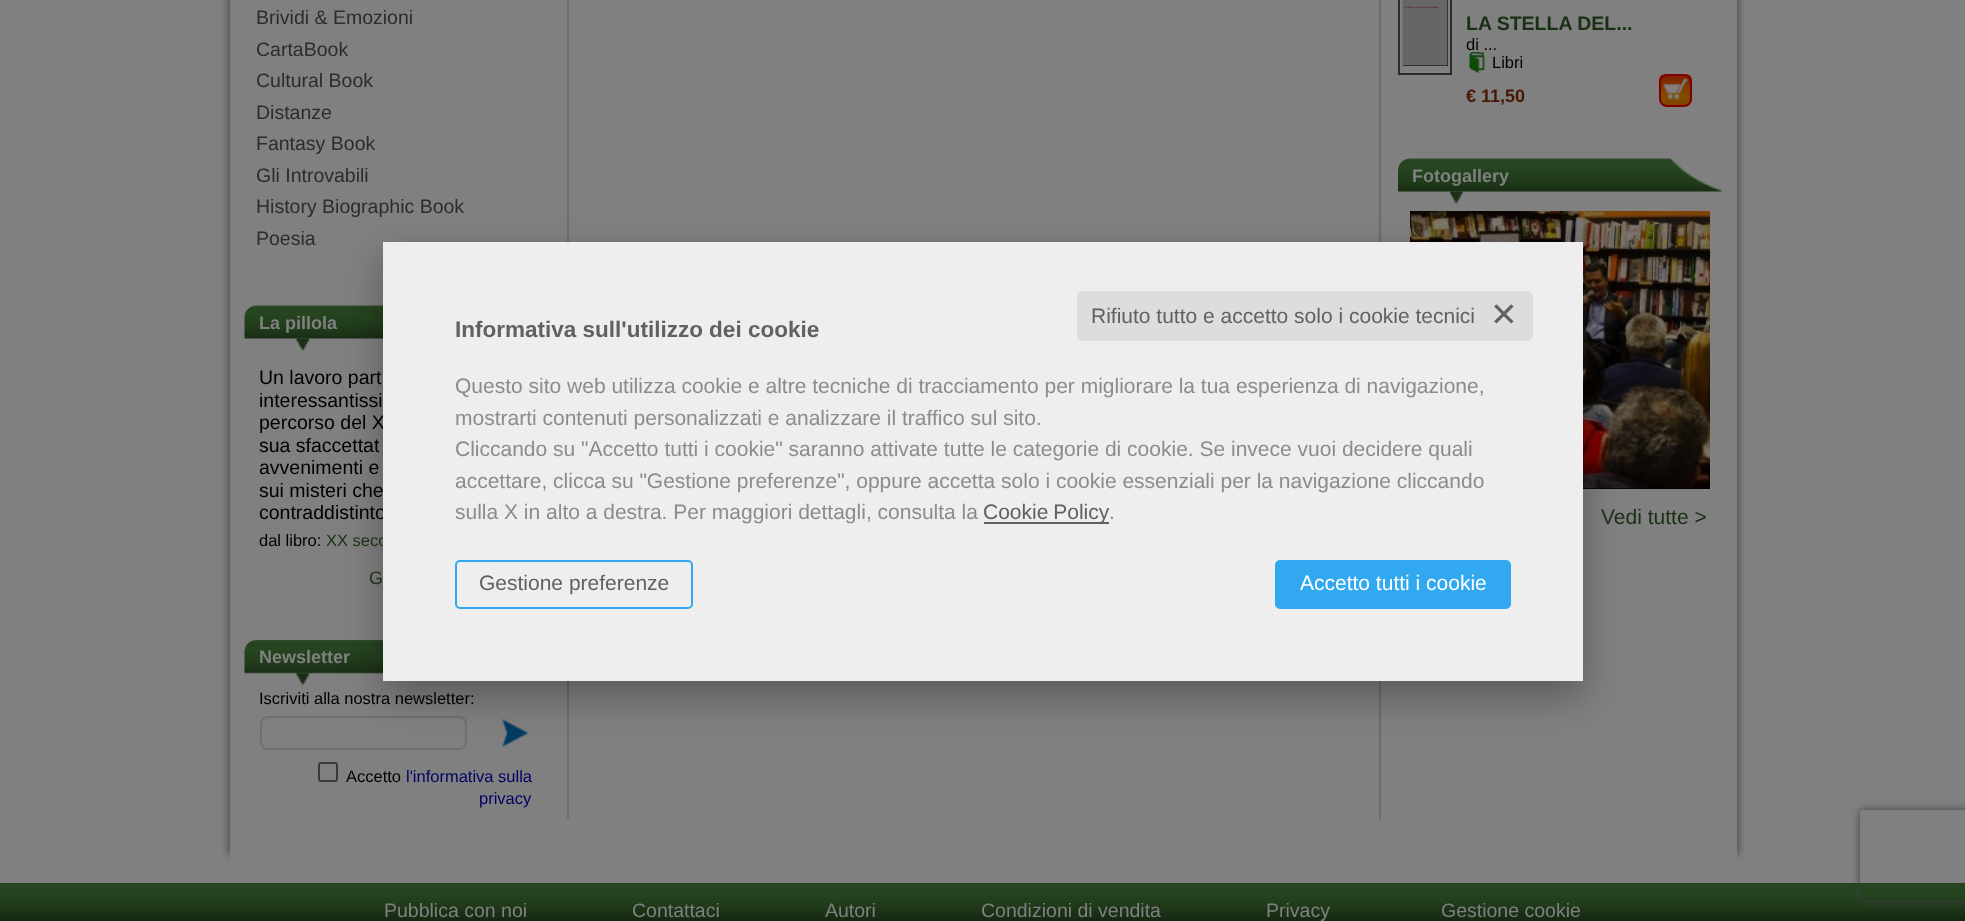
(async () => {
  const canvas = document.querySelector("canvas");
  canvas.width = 1965;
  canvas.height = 921;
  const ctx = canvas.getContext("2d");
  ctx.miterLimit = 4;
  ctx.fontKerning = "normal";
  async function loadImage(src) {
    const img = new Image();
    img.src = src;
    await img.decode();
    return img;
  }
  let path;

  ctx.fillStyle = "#808080";
  ctx.fillRect(0, 0, 1965, 921);
  ctx.save();
  ctx.beginPath();
  ctx.rect(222, 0, 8, 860);
  ctx.clip();
  ctx.fillStyle = "rgba(50, 50, 50, 0.5)";
  ctx.filter = "blur(3px)";
  ctx.beginPath();
  ctx.rect(227, -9, 1495, 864);
  ctx.fill();
  ctx.filter = "none";
  ctx.restore();
  ctx.save();
  ctx.beginPath();
  ctx.rect(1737, 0, 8, 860);
  ctx.clip();
  ctx.fillStyle = "rgba(50, 50, 50, 0.5)";
  ctx.filter = "blur(3px)";
  ctx.beginPath();
  ctx.rect(245, -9, 1495, 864);
  ctx.fill();
  ctx.filter = "none";
  ctx.restore();
  ctx.drawImage(await loadImage("img/1.png"), 296, 338, 14, 13);
  ctx.drawImage(await loadImage("img/2.png"), 244, 305, 139, 34);
  ctx.drawImage(await loadImage("img/3.png"), 296, 672, 14, 13);
  ctx.drawImage(await loadImage("img/4.png"), 244, 640, 139, 34);
  ctx.beginPath();
  ctx.roundRect(261, 717, 205, 32, 7);
  ctx.strokeStyle = "#707070";
  ctx.lineWidth = 2;
  ctx.stroke();
  ctx.drawImage(await loadImage("img/5.png"), 502, 719, 27, 28);
  ctx.beginPath();
  ctx.roundRect(319, 763, 18, 18, 2);
  ctx.strokeStyle = "#3b3b3b";
  ctx.stroke();
  ctx.fillStyle = "#6c6c6c";
  ctx.fillRect(1379, 0, 2, 819);
  ctx.fillRect(567, 0, 2, 819);
  ctx.strokeStyle = "#2b2b2b";
  ctx.strokeRect(1399, -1, 52, 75);
  ctx.fillStyle = "#000000";
  ctx.fillRect(1403, 0, 45, 66);
  ctx.drawImage(await loadImage("img/6.png"), 1402, 0, 46, 66);
  ctx.drawImage(await loadImage("img/7.png"), 1469, 52, 16, 21);
  ctx.drawImage(await loadImage("img/8.png"), 1659, 74, 33, 32);
  ctx.beginPath();
  ctx.roundRect(1660, 75, 31, 31, 7);
  ctx.strokeStyle = "#800000";
  ctx.stroke();
  ctx.drawImage(await loadImage("img/9.png"), 1663, 78, 25, 22);
  ctx.drawImage(await loadImage("img/10.png"), 1449, 191, 14, 13);
  ctx.drawImage(await loadImage("img/11.png"), 1398, 158, 324, 34);
  ctx.fillRect(1583, 488, 127, 1);
  ctx.drawImage(await loadImage("img/12.png"), 1410, 211, 300, 278);
  ctx.drawImage(await loadImage("img/13.png"), 0, 883, 1965, 38);
  ctx.fillStyle = "rgba(0, 0, 0, 0.3)";
  ctx.filter = "blur(19px)";
  ctx.beginPath();
  ctx.rect(383, 257, 1200, 439);
  ctx.fill();
  ctx.filter = "none";
  ctx.save();
  path = new Path2D("M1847 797H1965V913H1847ZM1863 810H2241C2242.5 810 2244 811.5 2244 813V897C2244 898.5 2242.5 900 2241 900H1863C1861.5 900 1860 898.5 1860 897V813C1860 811.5 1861.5 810 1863 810Z");
  ctx.clip(path, "evenodd");
  ctx.fillStyle = "#404040";
  ctx.filter = "blur(4px)";
  ctx.beginPath();
  ctx.roundRect(1860, 810, 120, 90, 3);
  ctx.fill();
  ctx.filter = "none";
  ctx.restore();
  ctx.font = "19.5px Liberation Sans";
  ctx.fillStyle = "#2c2c2c";
  for (const [text, x, y] of [
    ["Brividi & Emozioni", 256, 24],
    ["CartaBook", 256, 56],
    ["Cultural Book", 256, 87],
    ["Distanze", 256, 119],
    ["Fantasy Book", 256, 150],
    ["Gli Introvabili", 256, 182],
    ["History Biographic Book", 256, 213],
    ["Poesia", 256, 245],
  ]) {
    ctx.fillText(text, x, y);
  }
  ctx.font = "bold 18px Liberation Sans";
  ctx.fillStyle = "#808080";
  ctx.fillText("La pillola", 259, 329);
  ctx.font = "19.5px Liberation Sans";
  ctx.fillStyle = "#000000";
  for (const [text, x, y] of [
    ["Un lavoro part", 259, 384],
    ["interessantissi", 259, 407],
    ["percorso del X", 259, 429],
    ["sua sfaccettat", 259, 452],
    ["avvenimenti e", 259, 474],
    ["sui misteri che", 259, 497],
    ["contraddistinto", 259, 519],
  ]) {
    ctx.fillText(text, x, y);
  }
  ctx.font = "16.5px Liberation Sans";
  ctx.fillText("dal libro:", 259, 546);
  ctx.fillStyle = "#1a3015";
  ctx.fillText("XX seco", 326, 546);
  ctx.font = "18px Liberation Sans";
  ctx.fillText("G", 369, 584);
  ctx.font = "bold 18px Liberation Sans";
  ctx.fillStyle = "#808080";
  ctx.fillText("Newsletter", 259, 663);
  ctx.font = "16.5px Liberation Sans";
  ctx.fillStyle = "#000000";
  ctx.fillText("Iscriviti alla nostra newsletter:", 259, 704);
  ctx.fillText("Accetto", 346, 782);
  ctx.fillStyle = "#000066";
  ctx.fillText("l'informativa sulla", 406, 782);
  ctx.fillText("privacy", 479, 804);
  ctx.font = "bold 19.5px Liberation Sans";
  ctx.fillStyle = "#1a3015";
  ctx.fillText("LA STELLA DEL...", 1466, 30);
  ctx.font = "16.5px Liberation Sans";
  ctx.fillStyle = "#000000";
  ctx.fillText("di ...", 1466, 50);
  ctx.fillText("Libri", 1492, 68);
  ctx.font = "bold 18px Liberation Sans";
  ctx.fillStyle = "#471701";
  ctx.fillText("€ 11,50", 1466, 102);
  ctx.fillStyle = "#808080";
  ctx.fillText("Fotogallery", 1412, 182);
  ctx.font = "21px Liberation Sans";
  ctx.fillStyle = "#1a3015";
  ctx.fillText("Vedi tutte >", 1601, 524);
  ctx.font = "19.5px Liberation Sans";
  ctx.fillStyle = "#808080";
  for (const [text, x, y] of [
    ["Pubblica con noi", 384, 917],
    ["Contattaci", 632, 917],
    ["Autori", 825, 917],
    ["Condizioni di vendita", 981, 917],
    ["Privacy", 1266, 917],
    ["Gestione cookie", 1441, 917],
  ]) {
    ctx.fillText(text, x, y);
  }
  ctx.fillStyle = "#eeeeee";
  ctx.fillRect(383, 242, 1200, 439);
  ctx.fillStyle = "#dddddd";
  ctx.beginPath();
  ctx.roundRect(1077, 291, 456, 50, 5);
  ctx.fill();
  ctx.font = "21px Liberation Sans";
  ctx.fillStyle = "#626060";
  ctx.fillText("Rifiuto tutto e accetto solo i cookie tecnici", 1091, 323);
  ctx.font = "33px DejaVu Sans";
  ctx.fillText("✕", 1490, 326);
  ctx.font = "bold 22.5px Liberation Sans";
  ctx.fillText("Informativa sull'utilizzo dei cookie", 455, 337);
  ctx.font = "21px Liberation Sans";
  ctx.fillStyle = "#8d8b8b";
  for (const [text, x, y] of [
    ["Questo sito web utilizza cookie e altre tecniche di tracciamento per migliorare la tua esperienza di navigazione,", 455, 393],
    ["mostrarti contenuti personalizzati e analizzare il traffico sul sito.", 455, 425],
    ["Cliccando su \"Accetto tutti i cookie\" saranno attivate tutte le categorie di cookie. Se invece vuoi decidere quali", 455, 456],
    ["accettare, clicca su \"Gestione preferenze\", oppure accetta solo i cookie essenziali per la navigazione cliccando", 455, 488],
    ["sulla X in alto a destra. Per maggiori dettagli, consulta la", 455, 519],
    [".", 1109, 519],
  ]) {
    ctx.fillText(text, x, y);
  }
  ctx.fillStyle = "#626060";
  ctx.fillRect(984, 522, 125, 2);
  ctx.wordSpacing = "-1px";
  ctx.fillText("Cookie Policy", 983, 519);
  ctx.beginPath();
  ctx.roundRect(456, 561, 236, 47, 4);
  ctx.strokeStyle = "#31a8f0";
  ctx.stroke();
  ctx.wordSpacing = "0px";
  ctx.fillText("Gestione preferenze", 479, 590);
  ctx.fillStyle = "#31a8f0";
  ctx.beginPath();
  ctx.roundRect(1276, 561, 234, 47, 4);
  ctx.fill();
  ctx.stroke();
  ctx.fillStyle = "#ffffff";
  ctx.fillText("Accetto tutti i cookie", 1300, 590);
})();
